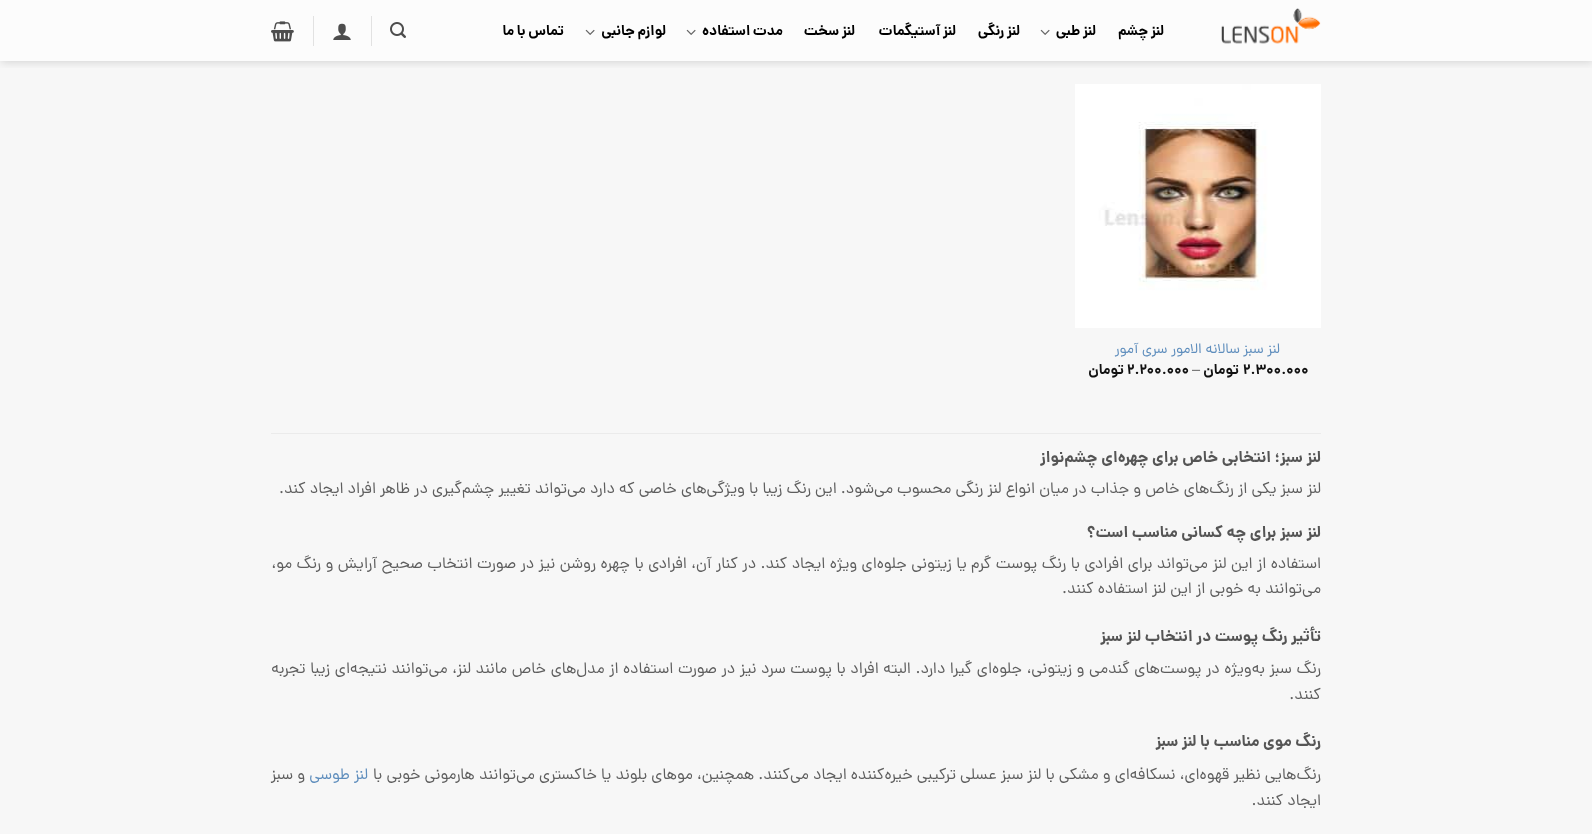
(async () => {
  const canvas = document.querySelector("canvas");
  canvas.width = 1592;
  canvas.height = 834;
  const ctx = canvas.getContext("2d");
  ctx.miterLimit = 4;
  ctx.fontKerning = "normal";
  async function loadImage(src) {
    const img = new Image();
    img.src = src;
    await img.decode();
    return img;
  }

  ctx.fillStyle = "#f7f7f7";
  ctx.fillRect(0, 0, 1592, 834);
  ctx.fillStyle = "#fcfcfc";
  ctx.fillRect(0, 0, 1592, 61);
  ctx.save();
  ctx.beginPath();
  ctx.rect(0, 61, 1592, 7);
  ctx.clip();
  ctx.fillStyle = "rgba(0, 0, 0, 0.15)";
  ctx.filter = "blur(5px)";
  ctx.beginPath();
  ctx.rect(1, 1, 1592, 61);
  ctx.fill();
  ctx.filter = "none";
  ctx.restore();
  ctx.drawImage(await loadImage("img/1.png"), 1221, 8, 100, 36);
  ctx.drawImage(await loadImage("img/2.png"), 1040, 29, 10, 6);
  ctx.drawImage(await loadImage("img/3.png"), 686, 29, 10, 6);
  ctx.drawImage(await loadImage("img/4.png"), 585, 29, 10, 6);
  ctx.drawImage(await loadImage("img/5.png"), 390, 22, 16, 16);
  ctx.fillStyle = "rgba(0, 0, 0, 0.1)";
  ctx.fillRect(371, 16, 1, 30);
  ctx.drawImage(await loadImage("img/6.png"), 333, 23, 18, 17);
  ctx.fillRect(313, 16, 1, 30);
  ctx.drawImage(await loadImage("img/7.png"), 271, 21, 23, 21);
  ctx.drawImage(await loadImage("img/8.png"), 1075, 84, 246, 244);
  ctx.fillStyle = "#ebebeb";
  ctx.fillRect(271, 433, 1050, 1);
  ctx.letterSpacing = "0.25px";
  ctx.wordSpacing = "-1px";
  ctx.direction = "rtl";
  ctx.font = "bold 14.5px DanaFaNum";
  ctx.fillStyle = "#000000";
  for (const [text, x, y] of [
    ["لنز چشم", 1164, 35],
    ["لنز طبی", 1096, 35],
    ["لنز رنگی", 1020, 35],
    ["لنز آستیگمات", 956, 35],
    ["لنز سخت", 855, 35],
    ["مدت استفاده", 783, 35],
    ["لوازم جانبی", 666, 35],
    ["تماس با ما", 564, 35],
  ]) {
    ctx.fillText(text, x, y);
  }
  ctx.letterSpacing = "0px";
  ctx.wordSpacing = "0px";
  ctx.font = "14.5px DanaFaNum";
  ctx.fillStyle = "#5f8ebd";
  ctx.fillText("لنز سبز", 1280, 353);
  ctx.fillText("سالانه الامور سری آمور", 1240, 353);
  ctx.direction = "ltr";
  ctx.font = "bold 14.5px DanaFaNum";
  ctx.fillStyle = "#111111";
  ctx.fillText("۲.۳۰۰.۰۰۰", 1243, 374);
  ctx.direction = "rtl";
  ctx.fillText("تومان", 1239, 374);
  ctx.direction = "ltr";
  ctx.font = "14.5px Liberation Sans";
  ctx.fillStyle = "#5e5e5e";
  ctx.fillText("–", 1192, 374);
  ctx.font = "bold 14.5px DanaFaNum";
  ctx.fillStyle = "#111111";
  ctx.fillText("۲.۲۰۰.۰۰۰", 1127, 374);
  ctx.direction = "rtl";
  ctx.fillText("تومان", 1124, 374);
  ctx.font = "bold 16px DanaFaNum";
  ctx.fillStyle = "#555555";
  ctx.fillText("لنز سبز؛ انتخابی خاص برای چهره‌ای چشم‌نواز", 1321, 462);
  ctx.font = "16px DanaFaNum";
  ctx.fillStyle = "#5e5e5e";
  ctx.fillText("لنز سبز یکی از رنگ‌های خاص و جذاب در میان انواع لنز رنگی محسوب می‌شود. این رنگ زیبا با ویژگی‌های خاصی که دارد می‌تواند تغییر چشم‌گیری در ظاهر افراد ایجاد کند.", 1321, 493);
  ctx.font = "bold 16px DanaFaNum";
  ctx.fillStyle = "#555555";
  ctx.fillText("لنز سبز برای چه کسانی مناسب است؟", 1321, 537);
  ctx.wordSpacing = "0.35px";
  ctx.font = "16px DanaFaNum";
  ctx.fillStyle = "#5e5e5e";
  ctx.fillText("استفاده از این لنز می‌تواند برای افرادی با رنگ پوست گرم یا زیتونی جلوه‌ای ویژه ایجاد کند. در کنار آن، افرادی با چهره روشن نیز در صورت انتخاب صحیح آرایش و رنگ مو،", 1321, 568);
  ctx.wordSpacing = "0px";
  ctx.fillText("می‌توانند به خوبی از این لنز استفاده کنند.", 1321, 593);
  ctx.font = "bold 16px DanaFaNum";
  ctx.fillStyle = "#555555";
  ctx.fillText("تأثیر رنگ پوست در انتخاب لنز سبز", 1321, 641);
  ctx.wordSpacing = "0.5px";
  ctx.font = "16px DanaFaNum";
  ctx.fillStyle = "#5e5e5e";
  ctx.fillText("رنگ سبز به‌ویژه در پوست‌های گندمی و زیتونی، جلوه‌ای گیرا دارد. البته افراد با پوست سرد نیز در صورت استفاده از مدل‌های خاص مانند لنز، می‌توانند نتیجه‌ای زیبا تجربه", 1321, 673);
  ctx.wordSpacing = "0px";
  ctx.fillText("کنند.", 1321, 699);
  ctx.font = "bold 16px DanaFaNum";
  ctx.fillStyle = "#555555";
  ctx.fillText("رنگ موی مناسب با لنز سبز", 1321, 746);
  ctx.font = "16px DanaFaNum";
  ctx.fillStyle = "#5e5e5e";
  ctx.fillText("رنگ‌هایی نظیر قهوه‌ای، نسکافه‌ای و مشکی با لنز سبز عسلی ترکیبی خیره‌کننده ایجاد می‌کنند. همچنین، موهای بلوند یا خاکستری می‌توانند هارمونی خوبی با", 1321, 779);
  ctx.fillStyle = "#5f8ebd";
  ctx.fillText("لنز طوسی", 368, 779);
  ctx.fillStyle = "#5e5e5e";
  ctx.fillText("و سبز", 305, 779);
  ctx.fillText("ایجاد کنند.", 1321, 805);
})();
